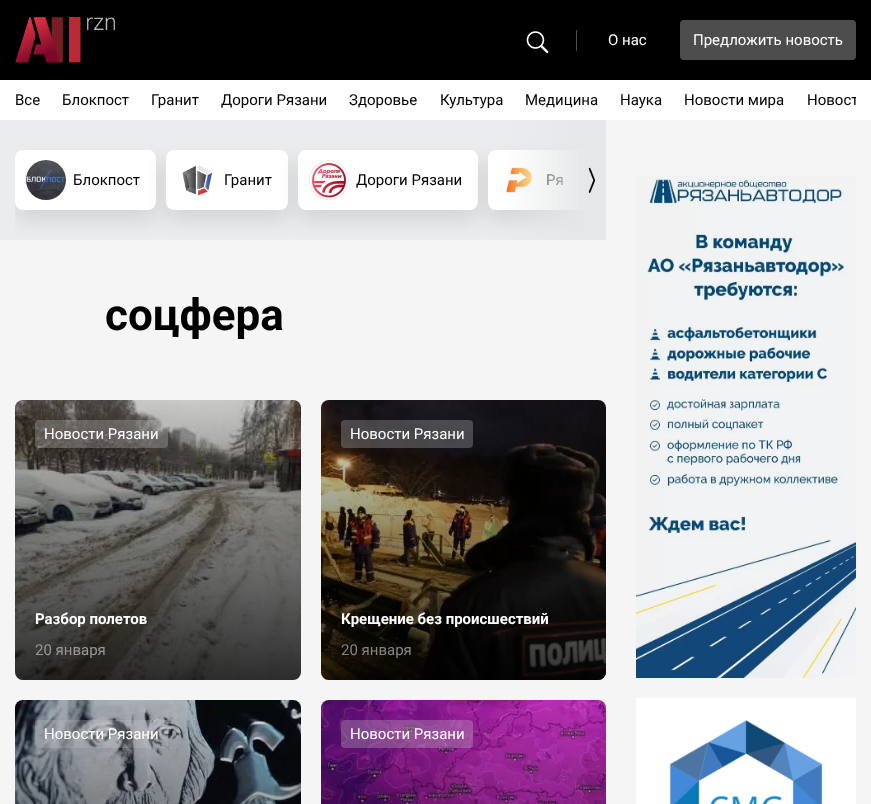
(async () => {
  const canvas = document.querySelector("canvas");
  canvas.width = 871;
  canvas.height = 804;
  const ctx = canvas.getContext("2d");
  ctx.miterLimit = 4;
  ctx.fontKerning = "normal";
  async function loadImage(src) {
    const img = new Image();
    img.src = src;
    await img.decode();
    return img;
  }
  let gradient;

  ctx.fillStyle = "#f5f5f5";
  ctx.fillRect(0, 0, 871, 804);
  ctx.fillStyle = "#000000";
  ctx.fillRect(0, 0, 871, 80);
  ctx.drawImage(await loadImage("img/1.png"), 15, 17, 100, 46);
  ctx.drawImage(await loadImage("img/2.png"), 526, 31, 23, 23);
  ctx.fillStyle = "#4d4d4d";
  ctx.fillRect(576, 30, 1, 21);
  ctx.beginPath();
  ctx.roundRect(680, 20, 176, 40, 4);
  ctx.fill();
  ctx.fillStyle = "#ffffff";
  ctx.fillRect(0, 80, 871, 40);
  ctx.fillStyle = "#eaeced";
  ctx.fillRect(0, 120, 586, 120);
  ctx.save();
  ctx.beginPath();
  ctx.rect(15, 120, 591, 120);
  ctx.clip();
  ctx.fillStyle = "rgba(0, 0, 0, 0.1)";
  ctx.filter = "blur(10px)";
  ctx.beginPath();
  ctx.roundRect(15, 160, 141, 60, 8);
  ctx.fill();
  ctx.filter = "none";
  ctx.restore();
  ctx.fillStyle = "#ffffff";
  ctx.beginPath();
  ctx.roundRect(15, 150, 141, 60, 8);
  ctx.fill();
  ctx.drawImage(await loadImage("img/3.png"), 26, 160, 40, 40);
  ctx.fillStyle = "rgba(0, 0, 0, 0.1)";
  ctx.filter = "blur(10px)";
  ctx.beginPath();
  ctx.roundRect(166, 160, 122, 60, 8);
  ctx.fill();
  ctx.filter = "none";
  ctx.fillStyle = "#ffffff";
  ctx.beginPath();
  ctx.roundRect(166, 150, 122, 60, 8);
  ctx.fill();
  ctx.drawImage(await loadImage("img/4.png"), 182, 165, 31, 31);
  ctx.fillStyle = "rgba(0, 0, 0, 0.1)";
  ctx.filter = "blur(10px)";
  ctx.beginPath();
  ctx.roundRect(298, 160, 180, 60, 8);
  ctx.fill();
  ctx.filter = "none";
  ctx.fillStyle = "#ffffff";
  ctx.beginPath();
  ctx.roundRect(298, 150, 180, 60, 8);
  ctx.fill();
  ctx.drawImage(await loadImage("img/5.png"), 309, 160, 40, 40);
  ctx.drawImage(await loadImage("img/12.png"), 636, 176, 220, 502);
  ctx.save();
  ctx.beginPath();
  ctx.rect(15, 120, 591, 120);
  ctx.clip();
  ctx.fillStyle = "rgba(0, 0, 0, 0.1)";
  ctx.filter = "blur(10px)";
  ctx.beginPath();
  ctx.roundRect(488, 160, 166, 60, 8);
  ctx.fill();
  ctx.filter = "none";
  ctx.restore();
  ctx.beginPath();
  ctx.roundRect(488, 150, 118, 60, [8, 0, 0, 8]);
  ctx.fill();
  ctx.drawImage(await loadImage("img/6.png"), 506, 167, 26, 26);
  ctx.drawImage(await loadImage("img/8.png"), 15, 400, 286, 280);
  gradient = ctx.createLinearGradient(158, 400, 158, 680);
  gradient.addColorStop(0, "rgba(0, 0, 0, 0.1)");
  gradient.addColorStop(1, "rgba(0, 0, 0, 0.8)");
  ctx.fillStyle = gradient;
  ctx.beginPath();
  ctx.roundRect(15, 400, 286, 280, 8);
  ctx.fill();
  ctx.fillStyle = "rgba(196, 196, 196, 0.3)";
  ctx.beginPath();
  ctx.roundRect(35, 420, 133, 28, 4);
  ctx.fill();
  ctx.drawImage(await loadImage("img/9.png"), 321, 400, 285, 280);
  gradient = ctx.createLinearGradient(464, 400, 464, 680);
  gradient.addColorStop(0, "rgba(0, 0, 0, 0.1)");
  gradient.addColorStop(1, "rgba(0, 0, 0, 0.8)");
  ctx.fillStyle = gradient;
  ctx.beginPath();
  ctx.roundRect(321, 400, 285, 280, 8);
  ctx.fill();
  ctx.fillStyle = "rgba(196, 196, 196, 0.3)";
  ctx.beginPath();
  ctx.roundRect(341, 420, 132, 28, 4);
  ctx.fill();
  ctx.drawImage(await loadImage("img/10.png"), 15, 700, 286, 104);
  gradient = ctx.createLinearGradient(158, 700, 158, 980);
  gradient.addColorStop(0, "rgba(0, 0, 0, 0.1)");
  gradient.addColorStop(1, "rgba(0, 0, 0, 0.8)");
  ctx.fillStyle = gradient;
  ctx.beginPath();
  ctx.roundRect(15, 700, 286, 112, 8);
  ctx.fill();
  ctx.fillStyle = "rgba(196, 196, 196, 0.3)";
  ctx.beginPath();
  ctx.roundRect(35, 720, 133, 28, 4);
  ctx.fill();
  ctx.drawImage(await loadImage("img/11.png"), 321, 700, 285, 104);
  gradient = ctx.createLinearGradient(464, 700, 464, 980);
  gradient.addColorStop(0, "rgba(0, 0, 0, 0.1)");
  gradient.addColorStop(1, "rgba(0, 0, 0, 0.8)");
  ctx.fillStyle = gradient;
  ctx.beginPath();
  ctx.roundRect(321, 700, 285, 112, 8);
  ctx.fill();
  ctx.fillStyle = "rgba(196, 196, 196, 0.3)";
  ctx.beginPath();
  ctx.roundRect(341, 720, 132, 28, 4);
  ctx.fill();
  ctx.drawImage(await loadImage("img/13.png"), 636, 698, 220, 106);
  ctx.font = "15px Roboto";
  ctx.fillStyle = "#ffffff";
  ctx.fillText("О нас", 608, 45);
  ctx.fillText("Предложить новость", 693, 45);
  ctx.fillStyle = "#000000";
  for (const [text, x, y] of [
    ["Все", 15, 105],
    ["Блокпост", 62, 105],
    ["Гранит", 151, 105],
    ["Дороги Рязани", 221, 105],
    ["Здоровье", 349, 105],
    ["Культура", 440, 105],
    ["Медицина", 525, 105],
    ["Наука", 620, 105],
    ["Новости мира", 684, 105],
  ]) {
    ctx.fillText(text, x, y);
  }
  ctx.save();
  ctx.beginPath();
  ctx.rect(15, 80, 841, 40);
  ctx.clip();
  ctx.fillText("Новост", 807, 105);
  ctx.restore();
  for (const [text, x, y] of [
    ["Блокпост", 73, 185],
    ["Гранит", 224, 185],
    ["Дороги Рязани", 356, 185],
    ["Ря", 546, 185],
  ]) {
    ctx.fillText(text, x, y);
  }
  gradient = ctx.createLinearGradient(606, 180, 506, 180);
  gradient.addColorStop(0.2, "#e5e7e8");
  gradient.addColorStop(1, "rgba(229, 231, 232, 0)");
  ctx.fillStyle = gradient;
  ctx.fillRect(508, 120, 98, 120);
  ctx.drawImage(await loadImage("img/7.png"), 588, 167, 8, 26);
  ctx.font = "bold 44px Roboto";
  ctx.fillStyle = "#000000";
  ctx.fillText("соцфера", 105, 330);
  ctx.font = "15px Roboto";
  ctx.fillStyle = "#ffffff";
  ctx.fillText("Новости Рязани", 44, 439);
  ctx.font = "bold 15px Roboto";
  ctx.fillText("Разбор полетов", 35, 624);
  ctx.font = "15px Roboto";
  ctx.fillStyle = "#989795";
  ctx.fillText("20 января", 35, 655);
  ctx.fillStyle = "#ffffff";
  ctx.fillText("Новости Рязани", 350, 439);
  ctx.font = "bold 15px Roboto";
  ctx.fillText("Крещение без происшествий", 341, 624);
  ctx.font = "15px Roboto";
  ctx.fillStyle = "#868581";
  ctx.fillText("20 января", 341, 655);
  ctx.fillStyle = "#ffffff";
  ctx.fillText("Новости Рязани", 44, 739);
  ctx.fillText("Новости Рязани", 350, 739);
})();
